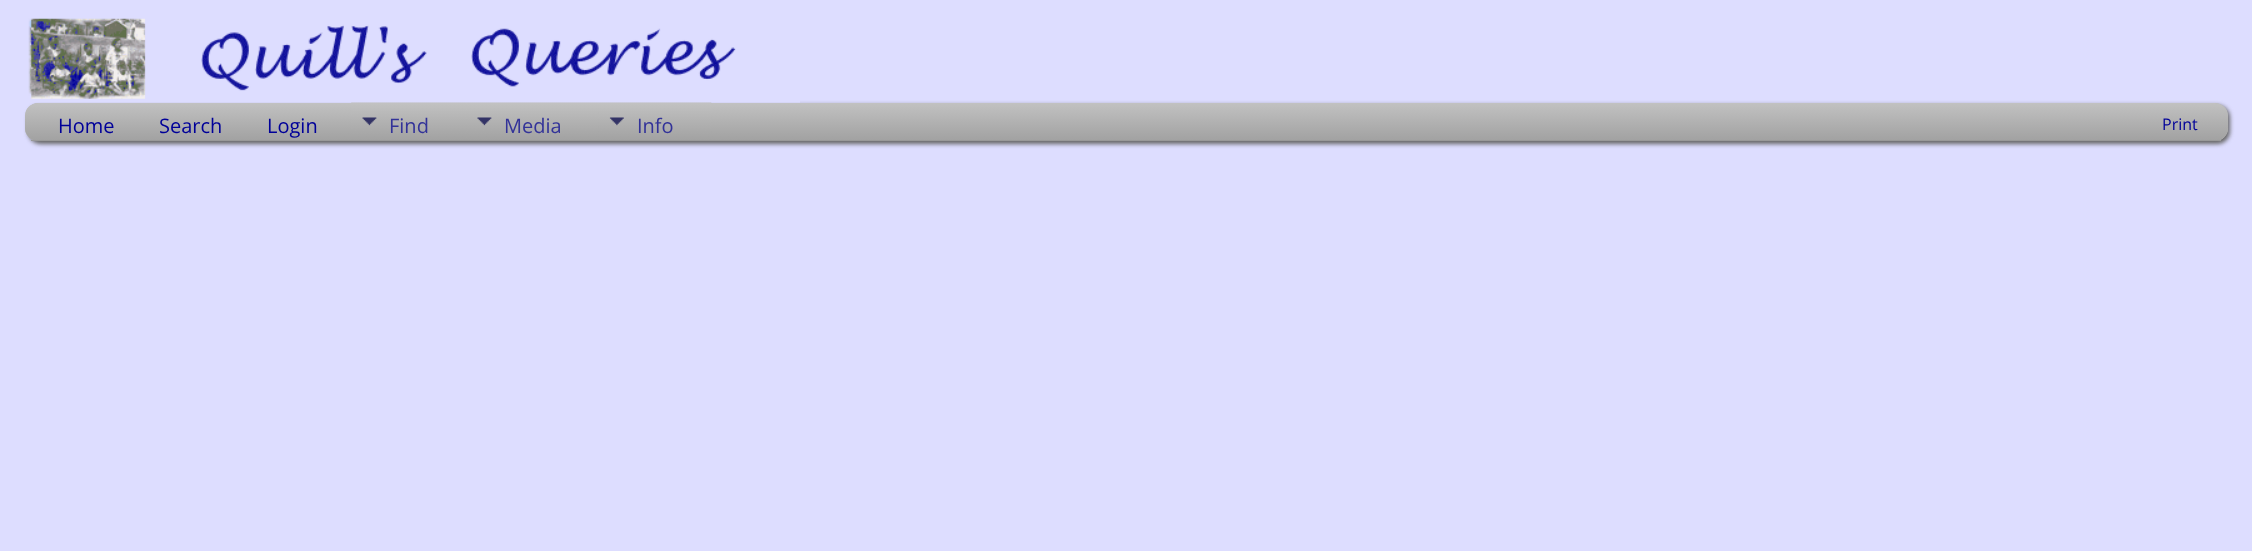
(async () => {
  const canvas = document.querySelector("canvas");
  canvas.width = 2252;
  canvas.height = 551;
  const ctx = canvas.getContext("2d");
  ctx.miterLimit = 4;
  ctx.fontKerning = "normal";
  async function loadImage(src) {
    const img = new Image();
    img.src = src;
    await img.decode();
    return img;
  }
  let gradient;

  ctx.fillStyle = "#ddddff";
  ctx.fillRect(0, 0, 2252, 551);
  ctx.fillStyle = "#666666";
  ctx.filter = "blur(2px)";
  ctx.beginPath();
  ctx.roundRect(28, 105, 2202, 39, 13);
  ctx.fill();
  ctx.filter = "none";
  ctx.drawImage(await loadImage("img/1.png"), 28, 18, 772, 85);
  ctx.fillStyle = "#bbbbbb";
  ctx.beginPath();
  ctx.roundRect(25, 103, 2203, 38, 13);
  ctx.fill();
  ctx.save();
  ctx.beginPath();
  ctx.roundRect(25, 103, 2203, 38, 13);
  ctx.clip();
  gradient = ctx.createLinearGradient(1126, 102, 1126, 140);
  gradient.addColorStop(0, "#c2c2c2");
  gradient.addColorStop(1, "#a2a2a2");
  ctx.fillStyle = gradient;
  ctx.beginPath();
  ctx.roundRect(25, 103, 2203, 37, [13, 13, 0, 0]);
  ctx.fill();
  ctx.restore();
  ctx.fillStyle = "#999999";
  ctx.fillRect(31, 140, 2190, 1);
  ctx.drawImage(await loadImage("img/2.png"), 351, 102, 116, 38);
  ctx.drawImage(await loadImage("img/3.png"), 466, 102, 133, 38);
  ctx.drawImage(await loadImage("img/4.png"), 598, 102, 114, 38);
  ctx.font = "20px Open Sans";
  ctx.fillStyle = "#000099";
  for (const [text, x, y] of [
    ["Home", 58, 133],
    ["Search", 159, 133],
    ["Login", 267, 133],
  ]) {
    ctx.fillText(text, x, y);
  }
  ctx.fillStyle = "#333399";
  for (const [text, x, y] of [
    ["Find", 389, 133],
    ["Media", 504, 133],
    ["Info", 637, 133],
  ]) {
    ctx.fillText(text, x, y);
  }
  ctx.font = "16px Open Sans";
  ctx.fillStyle = "#000099";
  ctx.fillText("Print", 2162, 130);
})();
